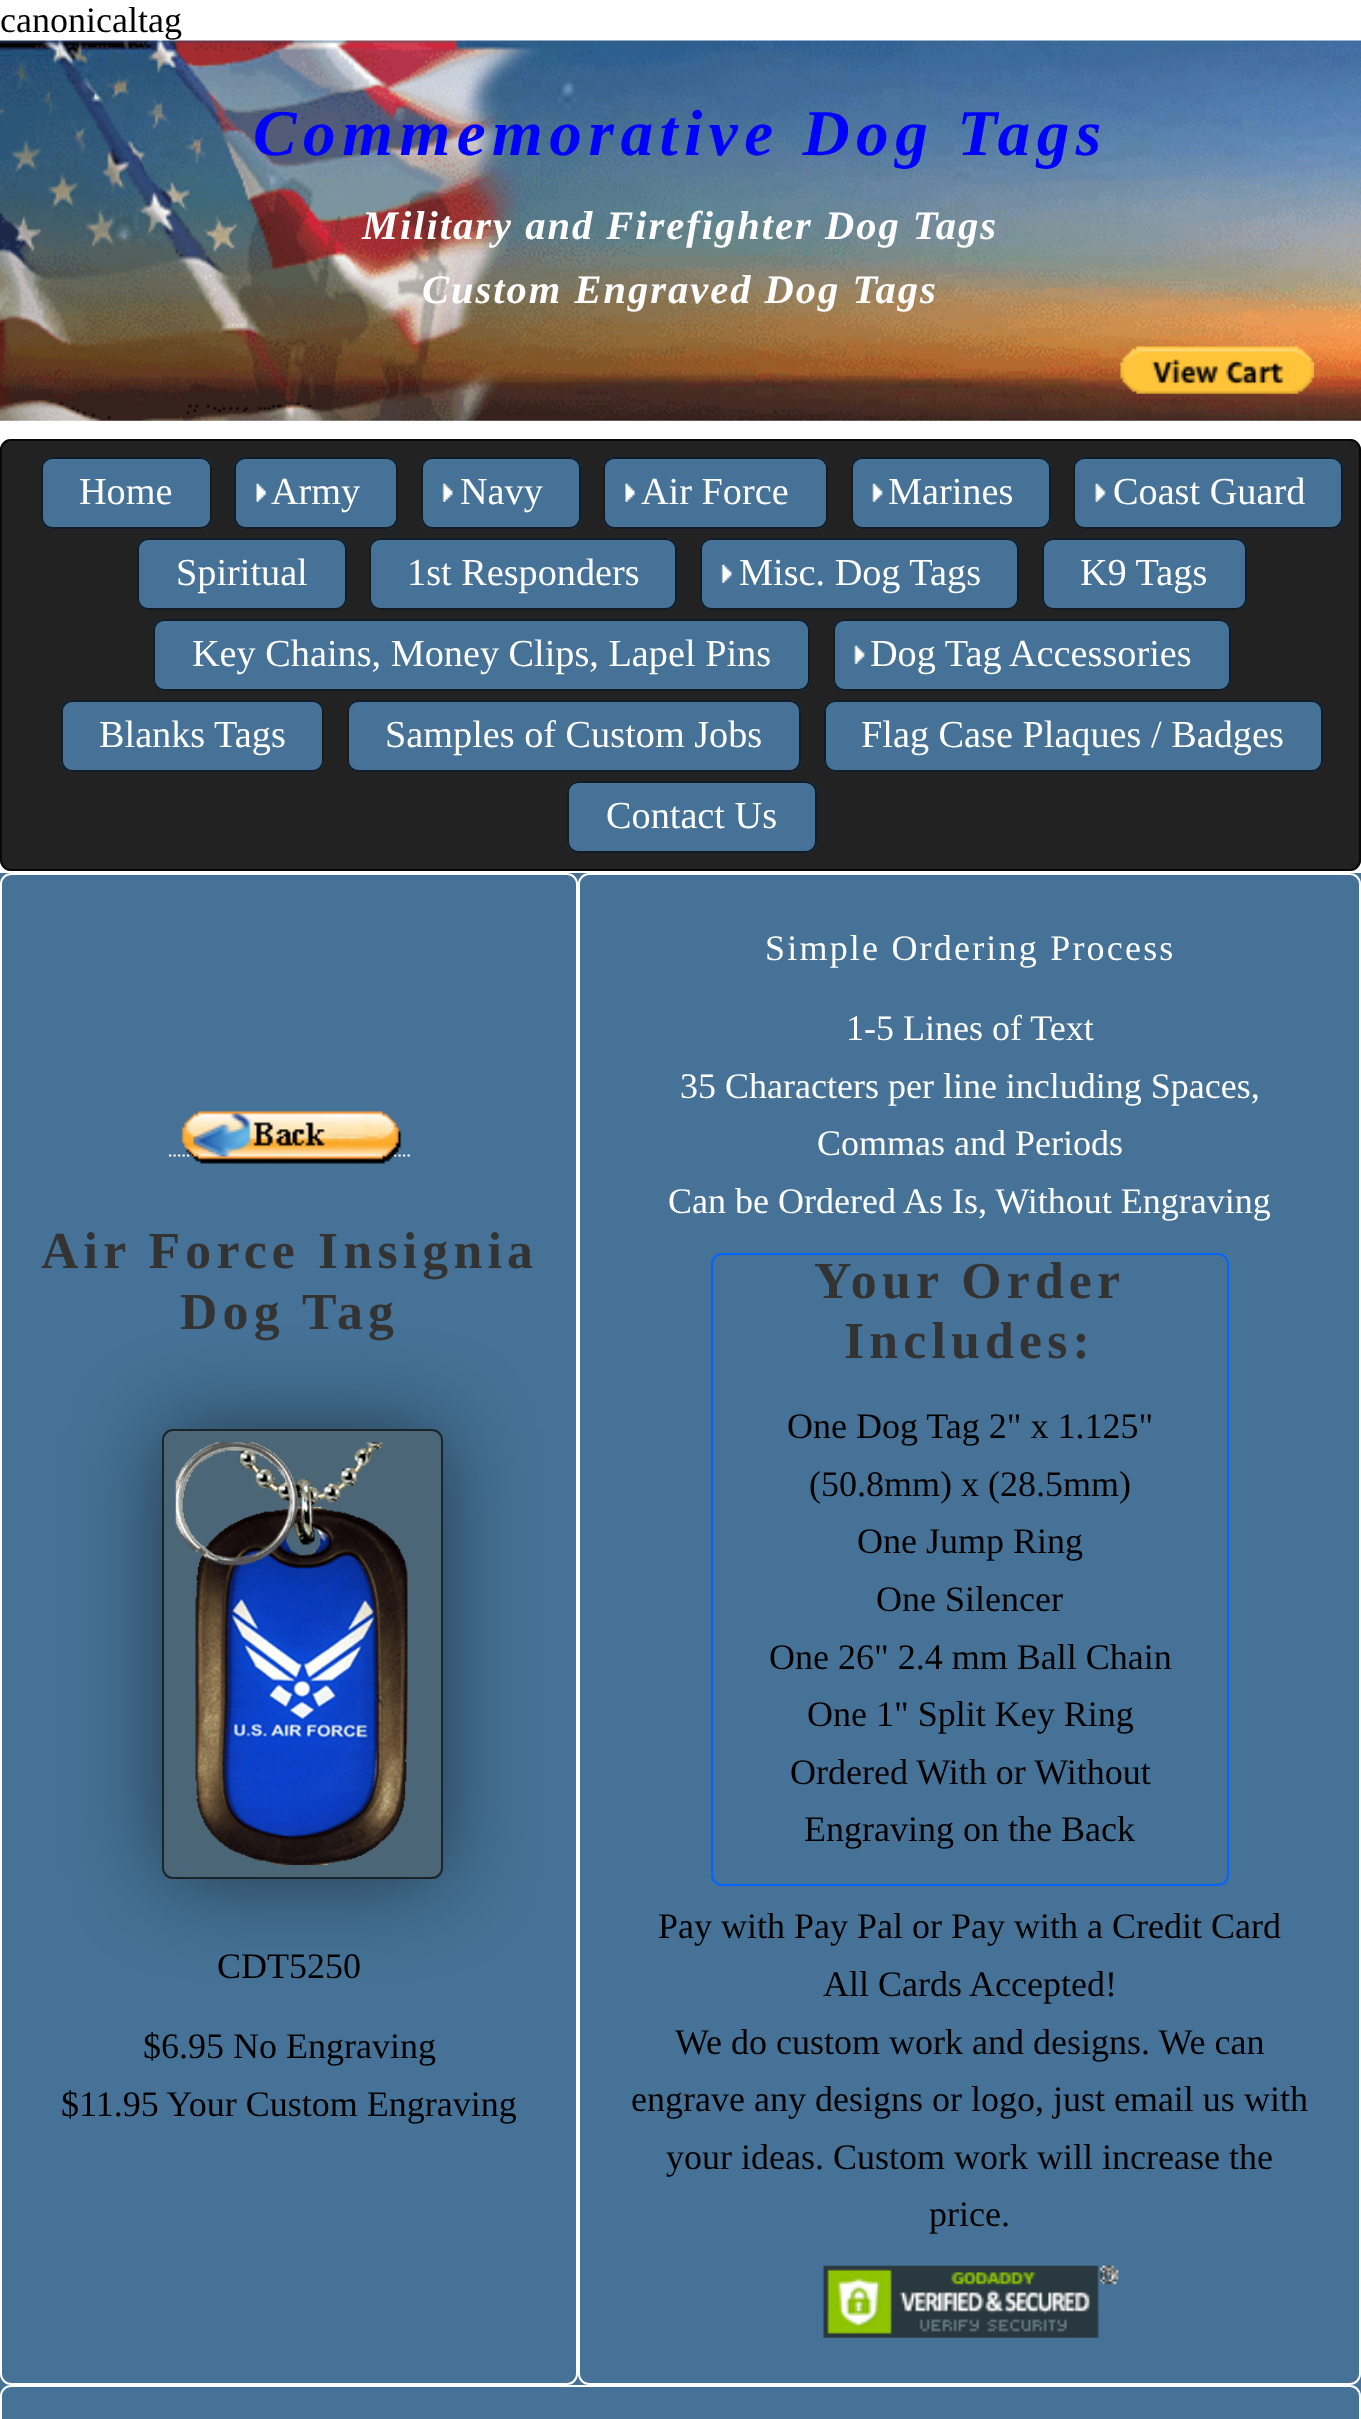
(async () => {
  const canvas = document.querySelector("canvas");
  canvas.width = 1361;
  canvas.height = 2419;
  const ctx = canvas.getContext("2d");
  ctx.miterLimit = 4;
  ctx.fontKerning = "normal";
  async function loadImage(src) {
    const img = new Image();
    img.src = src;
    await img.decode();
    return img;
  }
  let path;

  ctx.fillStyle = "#ffffff";
  ctx.fillRect(0, 0, 1361, 2419);
  ctx.drawImage(await loadImage("img/1.png"), 0, 40, 1361, 381);
  ctx.drawImage(await loadImage("img/2.png"), 1120, 346, 194, 48);
  ctx.fillStyle = "#222222";
  ctx.beginPath();
  ctx.roundRect(0, 439, 1361, 432, 11);
  ctx.fill();
  ctx.beginPath();
  ctx.roundRect(1, 440, 1359, 430, 10);
  ctx.strokeStyle = "rgba(0, 0, 0, 0.75)";
  ctx.lineWidth = 2;
  ctx.stroke();
  ctx.fillStyle = "#457296";
  ctx.beginPath();
  ctx.roundRect(41, 457, 171, 72, 11);
  ctx.fill();
  ctx.beginPath();
  ctx.roundRect(42, 458, 169, 70, 10);
  ctx.stroke();
  ctx.beginPath();
  ctx.roundRect(234, 457, 164, 72, 11);
  ctx.fill();
  ctx.drawImage(await loadImage("img/3.png"), 256, 483, 11, 19);
  ctx.beginPath();
  ctx.roundRect(235, 458, 162, 70, 10);
  ctx.stroke();
  ctx.beginPath();
  ctx.roundRect(421, 457, 160, 72, 11);
  ctx.fill();
  ctx.drawImage(await loadImage("img/4.png"), 442, 483, 11, 19);
  ctx.beginPath();
  ctx.roundRect(422, 458, 158, 70, 10);
  ctx.stroke();
  ctx.beginPath();
  ctx.roundRect(603, 457, 225, 72, 11);
  ctx.fill();
  ctx.drawImage(await loadImage("img/5.png"), 625, 483, 11, 19);
  ctx.beginPath();
  ctx.roundRect(604, 458, 223, 70, 10);
  ctx.stroke();
  ctx.beginPath();
  ctx.roundRect(851, 457, 200, 72, 11);
  ctx.fill();
  ctx.drawImage(await loadImage("img/6.png"), 872, 483, 11, 19);
  ctx.beginPath();
  ctx.roundRect(852, 458, 198, 70, 10);
  ctx.stroke();
  ctx.beginPath();
  ctx.roundRect(1073, 457, 270, 72, 11);
  ctx.fill();
  ctx.drawImage(await loadImage("img/7.png"), 1095, 483, 11, 19);
  ctx.beginPath();
  ctx.roundRect(1074, 458, 268, 70, 10);
  ctx.stroke();
  ctx.beginPath();
  ctx.roundRect(137, 538, 210, 72, 11);
  ctx.fill();
  ctx.beginPath();
  ctx.roundRect(138, 539, 208, 70, 10);
  ctx.stroke();
  ctx.beginPath();
  ctx.roundRect(369, 538, 308, 72, 11);
  ctx.fill();
  ctx.beginPath();
  ctx.roundRect(370, 539, 306, 70, 10);
  ctx.stroke();
  ctx.beginPath();
  ctx.roundRect(700, 538, 319, 72, 11);
  ctx.fill();
  ctx.drawImage(await loadImage("img/8.png"), 721, 564, 11, 19);
  ctx.beginPath();
  ctx.roundRect(701, 539, 317, 70, 10);
  ctx.stroke();
  ctx.beginPath();
  ctx.roundRect(1042, 538, 205, 72, 11);
  ctx.fill();
  ctx.beginPath();
  ctx.roundRect(1043, 539, 203, 70, 10);
  ctx.stroke();
  ctx.beginPath();
  ctx.roundRect(153, 619, 657, 72, 11);
  ctx.fill();
  ctx.beginPath();
  ctx.roundRect(154, 620, 655, 70, 10);
  ctx.stroke();
  ctx.beginPath();
  ctx.roundRect(833, 619, 398, 72, 11);
  ctx.fill();
  ctx.drawImage(await loadImage("img/6.png"), 854, 645, 11, 19);
  ctx.beginPath();
  ctx.roundRect(834, 620, 396, 70, 10);
  ctx.stroke();
  ctx.beginPath();
  ctx.roundRect(61, 700, 263, 72, 11);
  ctx.fill();
  ctx.beginPath();
  ctx.roundRect(62, 701, 261, 70, 10);
  ctx.stroke();
  ctx.beginPath();
  ctx.roundRect(347, 700, 454, 72, 11);
  ctx.fill();
  ctx.beginPath();
  ctx.roundRect(348, 701, 452, 70, 10);
  ctx.stroke();
  ctx.beginPath();
  ctx.roundRect(824, 700, 499, 72, 11);
  ctx.fill();
  ctx.beginPath();
  ctx.roundRect(825, 701, 497, 70, 10);
  ctx.stroke();
  ctx.beginPath();
  ctx.roundRect(567, 781, 250, 72, 11);
  ctx.fill();
  ctx.beginPath();
  ctx.roundRect(568, 782, 248, 70, 10);
  ctx.stroke();
  ctx.fillRect(0, 873, 1361, 1546);
  ctx.beginPath();
  ctx.roundRect(1, 874, 576, 1510, 10);
  ctx.strokeStyle = "#ffffff";
  ctx.stroke();
  path = new Path2D("M169 1155.5H412");
  ctx.lineWidth = 2.2;
  ctx.setLineDash([2.25, 2.25]);
  ctx.stroke(path);
  ctx.drawImage(await loadImage("img/9.png"), 181, 1111, 221, 53);
  ctx.fillStyle = "rgba(0, 0, 0, 0.5)";
  ctx.filter = "blur(45px)";
  ctx.beginPath();
  ctx.roundRect(162, 1429, 281, 450, 11);
  ctx.fill();
  ctx.filter = "none";
  ctx.fillStyle = "#4b6777";
  ctx.beginPath();
  ctx.roundRect(162, 1429, 281, 450, 11);
  ctx.fill();
  ctx.beginPath();
  ctx.roundRect(163, 1430, 279, 448, 10);
  ctx.strokeStyle = "rgba(0, 0, 0, 0.65)";
  ctx.lineWidth = 2;
  ctx.setLineDash([]);
  ctx.stroke();
  ctx.drawImage(await loadImage("img/10.png"), 175, 1442, 233, 424);
  ctx.beginPath();
  ctx.roundRect(579, 874, 781, 1510, 10);
  ctx.strokeStyle = "#ffffff";
  ctx.stroke();
  ctx.beginPath();
  ctx.roundRect(712, 1254, 516, 631, 10);
  ctx.strokeStyle = "#0066ff";
  ctx.stroke();
  ctx.drawImage(await loadImage("img/11.png"), 823, 2265, 296, 73);
  ctx.beginPath();
  ctx.roundRect(1, 2386, 1359, 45, 10);
  ctx.strokeStyle = "#ffffff";
  ctx.stroke();
  ctx.font = "36px Liberation Serif";
  ctx.fillStyle = "#000000";
  ctx.fillText("canonicaltag", 0, 32);
  ctx.letterSpacing = "6.5px";
  ctx.font = "italic bold 65.25px Liberation Serif";
  ctx.fillStyle = "#0000ff";
  ctx.fillText("Commemorative Dog Tags", 253, 155);
  ctx.letterSpacing = "2px";
  ctx.font = "italic bold 40.5px Liberation Serif";
  ctx.fillStyle = "#ffffff";
  ctx.fillText("Military and Firefighter Dog Tags", 362, 239);
  ctx.fillText("Custom Engraved Dog Tags", 422, 303);
  ctx.letterSpacing = "0px";
  ctx.font = "38.25px Liberation Serif";
  for (const [text, x, y] of [
    ["Home", 79, 504],
    ["Army", 271, 504],
    ["Navy", 460, 504],
    ["Air Force", 641, 504],
    ["Marines", 888, 504],
    ["Coast Guard", 1113, 504],
    ["Spiritual", 176, 585],
    ["1st Responders", 407, 585],
    ["Misc. Dog Tags", 739, 585],
    ["K9 Tags", 1080, 585],
    ["Key Chains, Money Clips, Lapel Pins", 192, 666],
    ["Dog Tag Accessories", 870, 666],
    ["Blanks Tags", 99, 747],
    ["Samples of Custom Jobs", 385, 747],
    ["Flag Case Plaques / Badges", 861, 747],
    ["Contact Us", 606, 828],
  ]) {
    ctx.fillText(text, x, y);
  }
  ctx.letterSpacing = "5.2px";
  ctx.font = "bold 51.75px Liberation Serif";
  ctx.fillStyle = "#333333";
  ctx.fillText("Air Force Insignia", 41, 1268);
  ctx.fillText("Dog Tag", 180, 1329);
  ctx.letterSpacing = "0px";
  ctx.font = "36px Liberation Serif";
  ctx.fillStyle = "#000000";
  for (const [text, x, y] of [
    ["CDT5250", 217, 1978],
    ["$6.95 No Engraving", 143, 2058],
    ["$11.95 Your Custom Engraving", 61, 2116],
  ]) {
    ctx.fillText(text, x, y);
  }
  ctx.letterSpacing = "2.2px";
  ctx.fillStyle = "#ffffff";
  ctx.fillText("Simple Ordering Process", 765, 960);
  ctx.letterSpacing = "0px";
  for (const [text, x, y] of [
    ["1-5 Lines of Text", 846, 1040],
    ["35 Characters per line including Spaces,", 680, 1098],
    ["Commas and Periods", 817, 1155],
    ["Can be Ordered As Is, Without Engraving", 668, 1213],
  ]) {
    ctx.fillText(text, x, y);
  }
  ctx.letterSpacing = "5.2px";
  ctx.font = "bold 51.75px Liberation Serif";
  ctx.fillStyle = "#333333";
  ctx.fillText("Your Order", 814, 1298);
  ctx.fillText("Includes:", 844, 1358);
  ctx.letterSpacing = "0px";
  ctx.font = "36px Liberation Serif";
  ctx.fillStyle = "#000000";
  for (const [text, x, y] of [
    ["One Dog Tag 2\" x 1.125\"", 787, 1438],
    ["(50.8mm) x (28.5mm)", 809, 1496],
    ["One Jump Ring", 857, 1553],
    ["One Silencer", 876, 1611],
    ["One 26\" 2.4 mm Ball Chain", 769, 1669],
    ["One 1\" Split Key Ring", 807, 1726],
    ["Ordered With or Without", 790, 1784],
    ["Engraving on the Back", 804, 1841],
    ["Pay with Pay Pal or Pay with a Credit Card", 658, 1938],
    ["All Cards Accepted!", 823, 1996],
    ["We do custom work and designs. We can", 675, 2054],
    ["engrave any designs or logo, just email us with", 631, 2111],
    ["your ideas. Custom work will increase the", 666, 2169],
    ["price.", 929, 2226],
  ]) {
    ctx.fillText(text, x, y);
  }
})();
